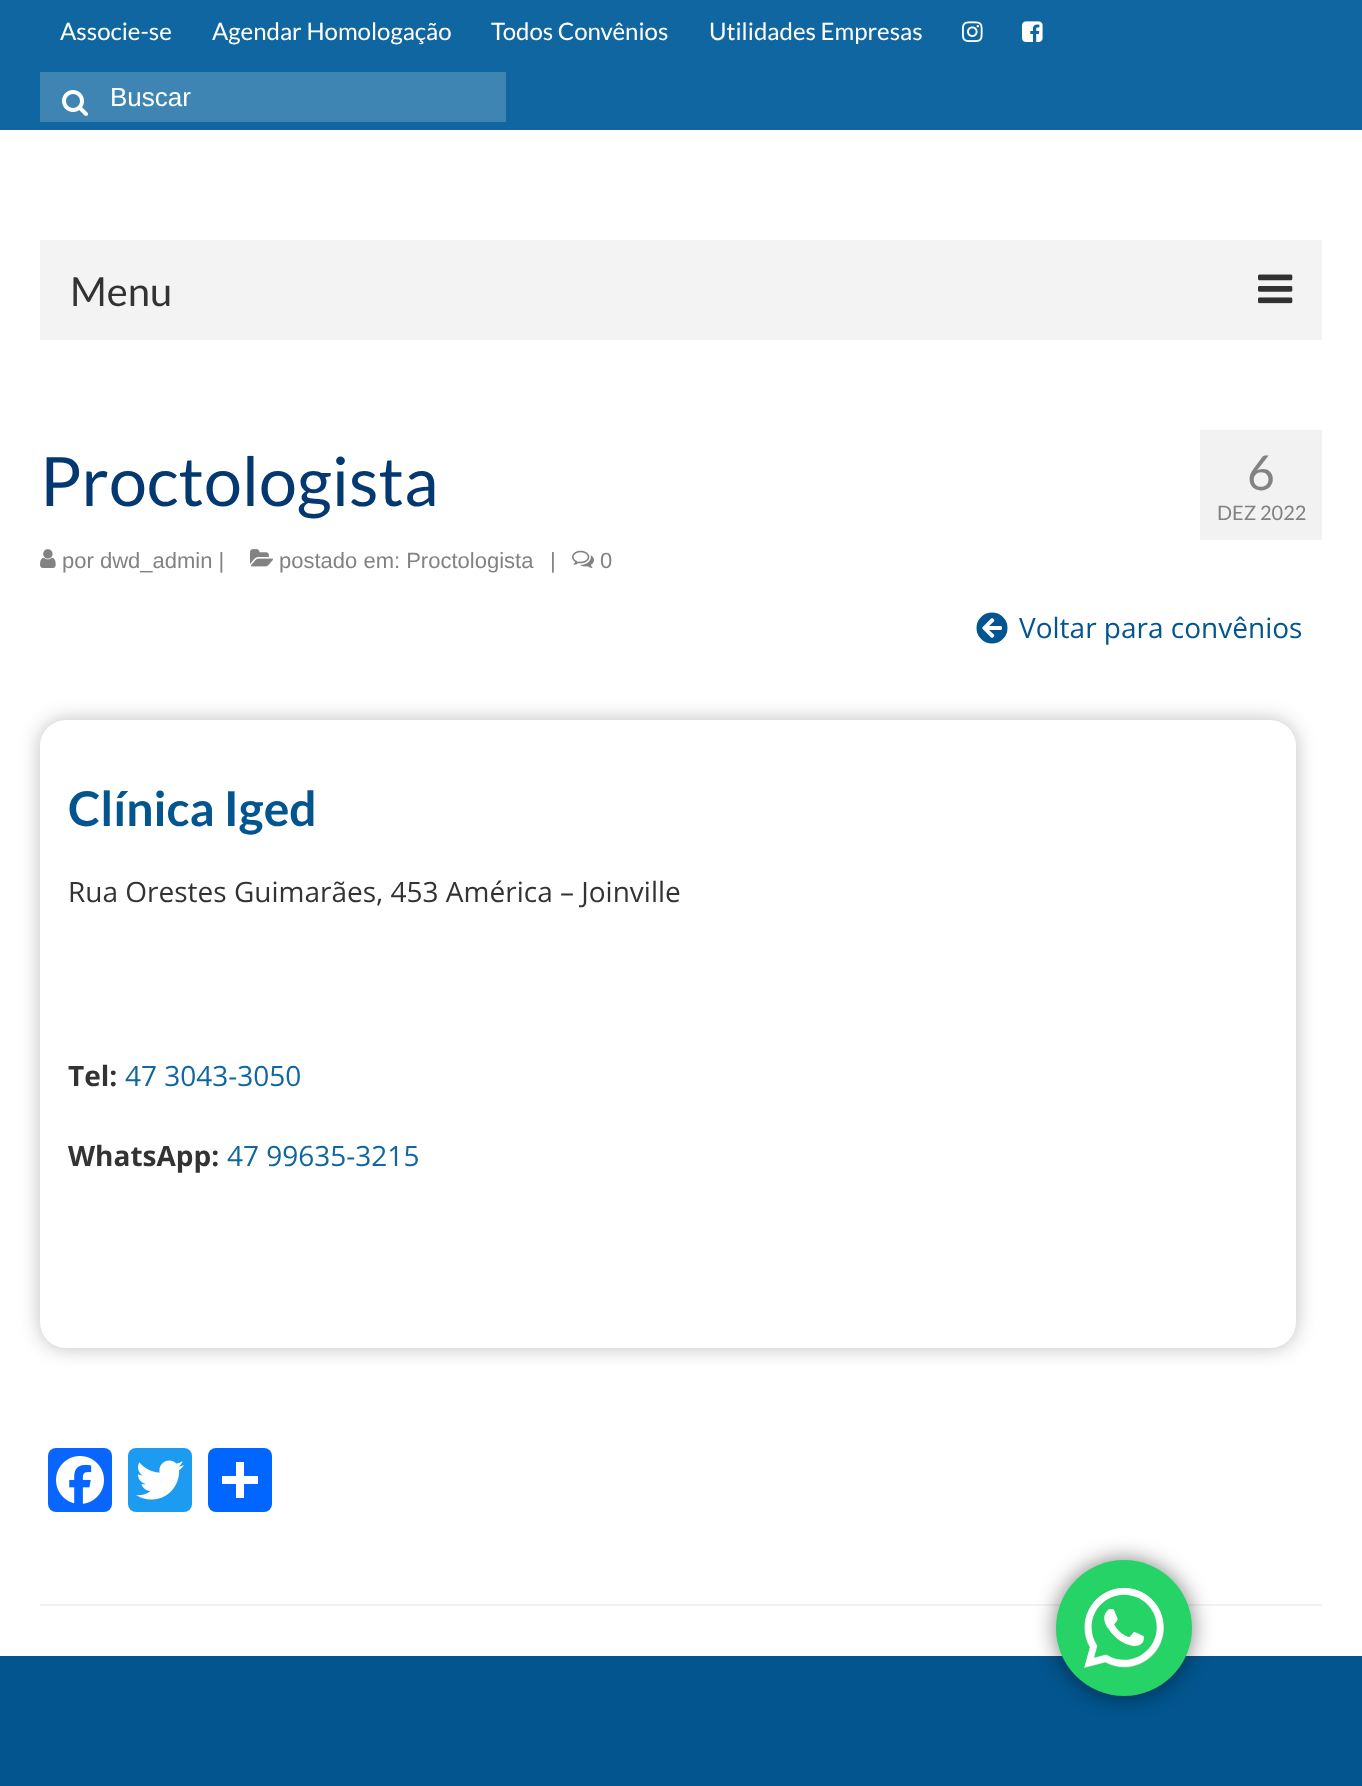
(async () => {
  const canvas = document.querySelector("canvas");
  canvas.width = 1362;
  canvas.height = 1786;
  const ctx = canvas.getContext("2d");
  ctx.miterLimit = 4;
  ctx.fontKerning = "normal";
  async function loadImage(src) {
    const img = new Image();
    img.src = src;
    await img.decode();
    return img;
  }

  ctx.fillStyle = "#ffffff";
  ctx.fillRect(0, 0, 1362, 1786);
  ctx.fillStyle = "#0f66a0";
  ctx.fillRect(0, 0, 1362, 130);
  ctx.drawImage(await loadImage("img/1.png"), 962, 21, 21, 21);
  ctx.drawImage(await loadImage("img/2.png"), 1022, 21, 21, 21);
  ctx.fillStyle = "#3f85b3";
  ctx.fillRect(40, 72, 466, 50);
  ctx.drawImage(await loadImage("img/3.png"), 62, 90, 26, 26);
  ctx.fillStyle = "#f3f3f3";
  ctx.fillRect(40, 240, 1282, 100);
  ctx.drawImage(await loadImage("img/4.png"), 1258, 274, 35, 30);
  ctx.drawImage(await loadImage("img/5.png"), 40, 549, 16, 19);
  ctx.drawImage(await loadImage("img/6.png"), 250, 549, 23, 18);
  ctx.drawImage(await loadImage("img/7.png"), 572, 550, 22, 18);
  ctx.fillStyle = "#f2f2f2";
  ctx.fillRect(1200, 430, 122, 110);
  ctx.drawImage(await loadImage("img/8.png"), 976, 612, 32, 32);
  ctx.fillStyle = "rgba(125, 125, 125, 0.5)";
  ctx.filter = "blur(10px)";
  ctx.beginPath();
  ctx.roundRect(40, 720, 1256, 628, 26);
  ctx.fill();
  ctx.filter = "none";
  ctx.fillStyle = "#ffffff";
  ctx.beginPath();
  ctx.roundRect(40, 720, 1256, 628, 26);
  ctx.fill();
  ctx.fillStyle = "#0866ff";
  ctx.beginPath();
  ctx.roundRect(48, 1448, 64, 64, 8);
  ctx.fill();
  ctx.drawImage(await loadImage("img/9.png"), 56, 1456, 48, 48);
  ctx.fillStyle = "#1d9bf0";
  ctx.beginPath();
  ctx.roundRect(128, 1448, 64, 64, 8);
  ctx.fill();
  ctx.drawImage(await loadImage("img/10.png"), 136, 1460, 48, 40);
  ctx.fillStyle = "#0166ff";
  ctx.beginPath();
  ctx.roundRect(208, 1448, 64, 64, 8);
  ctx.fill();
  for (const [x, y, w, h, color] of [
    [236, 1462, 8, 36, "#ffffff"],
    [222, 1476, 36, 8, "#ffffff"],
    [40, 1604, 1282, 2, "#f2f2f2"],
    [0, 1656, 1362, 130, "#02558e"],
  ]) {
    ctx.fillStyle = color;
    ctx.fillRect(x, y, w, h);
  }
  ctx.fillStyle = "rgba(0, 0, 0, 0.5)";
  ctx.filter = "blur(11px)";
  ctx.beginPath();
  ctx.roundRect(1056, 1560, 136, 136, 68);
  ctx.fill();
  ctx.filter = "none";
  ctx.fillStyle = "#25d366";
  ctx.beginPath();
  ctx.arc(1124, 1628, 68, 0, Math.PI * 2);
  ctx.fill();
  ctx.drawImage(await loadImage("img/11.png"), 1084, 1588, 80, 80);
  ctx.font = "24px Lato";
  ctx.fillStyle = "#ffffff";
  for (const [text, x, y] of [
    ["Associe-se", 60, 40],
    ["Agendar Homologação", 212, 40],
    ["Todos Convênios", 491, 40],
    ["Utilidades Empresas", 709, 40],
  ]) {
    ctx.fillText(text, x, y);
  }
  ctx.font = "26px Liberation Sans";
  ctx.fillText("Buscar", 110, 106);
  ctx.font = "40px Lato";
  ctx.fillStyle = "#333333";
  ctx.fillText("Menu", 70, 306);
  ctx.font = "68px Lato";
  ctx.fillStyle = "#033970";
  ctx.fillText("Proctologista", 40, 506);
  ctx.font = "22px Liberation Sans";
  ctx.fillStyle = "#828282";
  for (const [text, x, y] of [
    ["por dwd_admin |", 62, 568],
    ["postado em: Proctologista", 279, 568],
    ["|", 550, 568],
    ["0", 600, 568],
  ]) {
    ctx.fillText(text, x, y);
  }
  ctx.font = "48px Lato";
  ctx.fillText("6", 1247, 490);
  ctx.font = "20px Lato";
  ctx.fillText("DEZ 2022", 1217, 520);
  ctx.font = "28px Open Sans";
  ctx.fillStyle = "#02558e";
  ctx.fillText("Voltar para convênios", 1019, 638);
  ctx.font = "bold 48px Lato";
  ctx.fillText("Clínica Iged", 68, 826);
  ctx.font = "28px Open Sans";
  ctx.fillStyle = "#333333";
  ctx.fillText("Rua Orestes Guimarães, 453 América – Joinville", 68, 902);
  ctx.font = "bold 28px Open Sans";
  ctx.fillText("Tel:", 68, 1086);
  ctx.font = "28px Open Sans";
  ctx.fillStyle = "#0f66a0";
  ctx.fillText("47 3043-3050", 125, 1086);
  ctx.font = "bold 28px Open Sans";
  ctx.fillStyle = "#333333";
  ctx.fillText("WhatsApp:", 68, 1166);
  ctx.font = "28px Open Sans";
  ctx.fillStyle = "#0f66a0";
  ctx.fillText("47 99635-3215", 227, 1166);
})();
